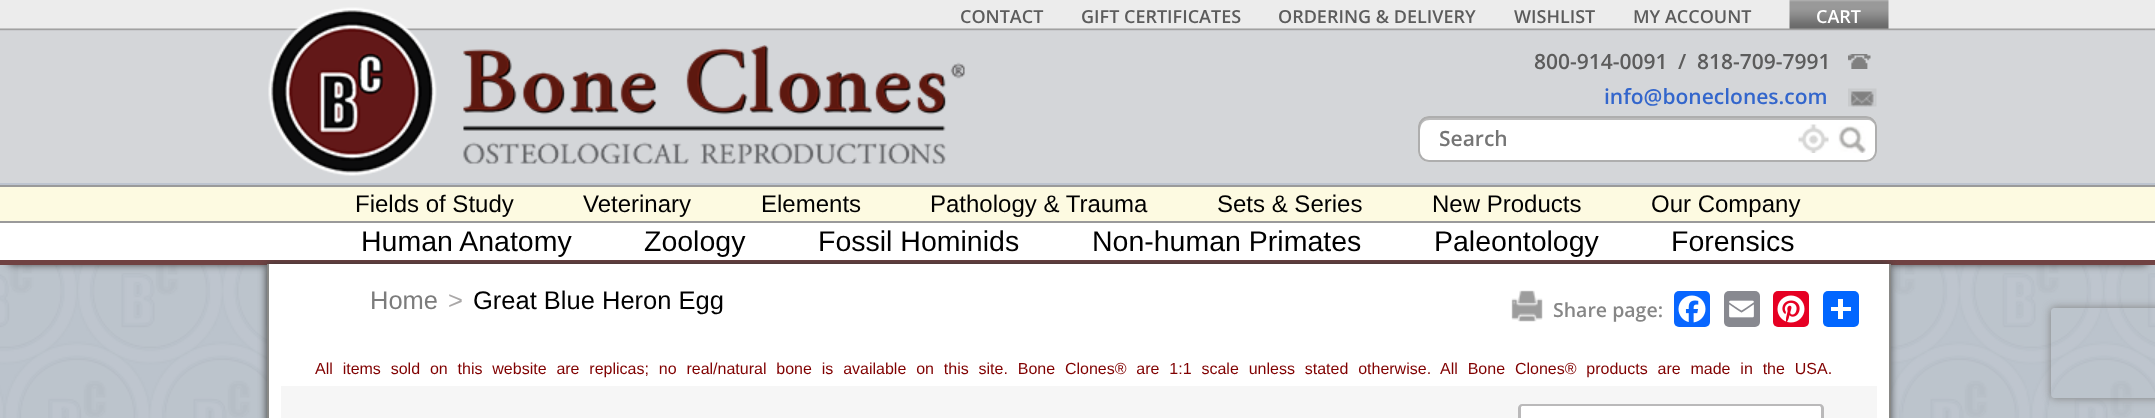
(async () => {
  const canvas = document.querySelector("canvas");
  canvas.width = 2155;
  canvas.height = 418;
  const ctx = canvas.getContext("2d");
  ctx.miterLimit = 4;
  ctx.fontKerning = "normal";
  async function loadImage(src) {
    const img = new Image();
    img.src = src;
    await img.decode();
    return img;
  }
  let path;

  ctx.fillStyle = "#ffffff";
  ctx.fillRect(0, 0, 2155, 418);
  ctx.drawImage(await loadImage("img/1.png"), 0, 265, 2155, 153);
  ctx.fillStyle = "#333333";
  ctx.filter = "blur(4.5px)";
  ctx.beginPath();
  ctx.rect(9, 18, 2138, 246);
  ctx.fill();
  ctx.filter = "none";
  ctx.fillStyle = "#bdc4cf";
  ctx.fillRect(0, 183, 2155, 2);
  ctx.drawImage(await loadImage("img/2.png"), 0, 0, 2155, 183);
  ctx.fillStyle = "#704242";
  ctx.fillRect(0, 260, 2155, 5);
  ctx.drawImage(await loadImage("img/3.png"), 268, 7, 169, 169);
  ctx.drawImage(await loadImage("img/4.png"), 463, 45, 502, 119);
  ctx.drawImage(await loadImage("img/5.png"), 1789, 0, 100, 29);
  ctx.drawImage(await loadImage("img/6.png"), 1848, 54, 23, 15);
  ctx.drawImage(await loadImage("img/7.png"), 1848, 88, 29, 19);
  ctx.fillStyle = "#ffffff";
  ctx.beginPath();
  ctx.roundRect(1418, 116, 459, 46, 11);
  ctx.fill();
  ctx.fillStyle = "#bbbbbb";
  path = new Path2D("M1430 120H1868C1871 120 1873 122 1875 125C1874 120 1870 117 1866 117H1428C1423 117 1419 121 1419 126V152C1419 154 1420 156 1421 157C1419 153 1420 146 1420 142C1420 133 1418 120 1430 120Z");
  ctx.fill(path);
  ctx.beginPath();
  ctx.roundRect(1419, 117, 457, 44, 10);
  ctx.strokeStyle = "#aeaeae";
  ctx.lineWidth = 2;
  ctx.stroke();
  ctx.drawImage(await loadImage("img/8.png"), 1798, 124, 31, 29);
  ctx.drawImage(await loadImage("img/9.png"), 1838, 126, 28, 27);
  ctx.fillStyle = "#fdfae1";
  ctx.fillRect(0, 187, 2155, 34);
  ctx.fillStyle = "#9a9a9a";
  ctx.fillRect(0, 185, 2155, 2);
  ctx.fillStyle = "#333333";
  ctx.filter = "blur(4px)";
  ctx.beginPath();
  ctx.rect(267, 264, 1623, 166);
  ctx.fill();
  ctx.filter = "none";
  for (const [x, y, w, h, color] of [
    [0, 223, 2155, 37, "#ffffff"],
    [0, 221, 2155, 2, "#9a9a9a"],
    [269, 264, 1620, 154, "#ffffff"],
    [1889, 264, 2, 154, "#888886"],
    [267, 264, 2, 154, "#888886"],
  ]) {
    ctx.fillStyle = color;
    ctx.fillRect(x, y, w, h);
  }
  ctx.drawImage(await loadImage("img/10.png"), 1511, 290, 32, 32);
  ctx.fillStyle = "#0866ff";
  ctx.beginPath();
  ctx.roundRect(1674, 291, 36, 36, 5);
  ctx.fill();
  ctx.drawImage(await loadImage("img/11.png"), 1678, 295, 28, 28);
  ctx.fillStyle = "#888990";
  ctx.beginPath();
  ctx.roundRect(1724, 291, 36, 36, 5);
  ctx.fill();
  ctx.drawImage(await loadImage("img/12.png"), 1729, 300, 25, 18);
  ctx.fillStyle = "#e60023";
  ctx.beginPath();
  ctx.roundRect(1773, 291, 36, 36, 5);
  ctx.fill();
  ctx.drawImage(await loadImage("img/13.png"), 1777, 295, 28, 28);
  ctx.fillStyle = "#0166ff";
  ctx.beginPath();
  ctx.roundRect(1823, 291, 36, 36, 5);
  ctx.fill();
  for (const [x, y, w, h, color] of [
    [1838, 299, 5, 20, "#ffffff"],
    [1831, 307, 20, 4, "#ffffff"],
    [281, 386, 1596, 32, "#f6f6f6"],
  ]) {
    ctx.fillStyle = color;
    ctx.fillRect(x, y, w, h);
  }
  ctx.fillStyle = "#ffffff";
  path = new Path2D("M1523 404H1819C1822 404 1824 406 1824 409V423H1518V409C1518 406 1520 404 1523 404Z");
  ctx.fill(path);
  ctx.fillStyle = "#bab9ba";
  path = new Path2D("M1522 404H1820C1822 404 1824 406 1824 408V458H1518V408C1518 406 1520 404 1522 404ZM1522 406H1820C1820 406 1821 407 1821 408V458H1521V407Z");
  ctx.fill(path, "evenodd");
  ctx.save();
  path = new Path2D("M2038 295H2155V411H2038ZM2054 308H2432C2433.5 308 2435 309.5 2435 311V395C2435 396.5 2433.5 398 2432 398H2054C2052.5 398 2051 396.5 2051 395V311C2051 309.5 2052.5 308 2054 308Z");
  ctx.clip(path, "evenodd");
  ctx.fillStyle = "#808080";
  ctx.filter = "blur(4px)";
  ctx.beginPath();
  ctx.roundRect(2051, 308, 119, 90, 3);
  ctx.fill();
  ctx.filter = "none";
  ctx.restore();
  ctx.font = "600 18px Open Sans";
  ctx.fillStyle = "#5c5c5c";
  for (const [text, x, y] of [
    ["CONTACT", 960, 23],
    ["GIFT CERTIFICATES", 1081, 23],
    ["ORDERING & DELIVERY", 1278, 23],
    ["WISHLIST", 1514, 23],
    ["MY ACCOUNT", 1633, 23],
  ]) {
    ctx.fillText(text, x, y);
  }
  ctx.fillStyle = "#ffffff";
  ctx.fillText("CART", 1816, 23);
  ctx.font = "600 21px Open Sans";
  ctx.fillStyle = "#5c5c5c";
  for (const [text, x, y] of [
    ["800-914-0091", 1534, 69],
    ["/", 1678, 69],
    ["818-709-7991", 1697, 69],
  ]) {
    ctx.fillText(text, x, y);
  }
  ctx.fillStyle = "#3366cc";
  ctx.fillText("info@boneclones.com", 1604, 104);
  ctx.fillStyle = "#757575";
  ctx.fillText("Search", 1439, 146);
  ctx.font = "24px Liberation Sans";
  ctx.fillStyle = "#000000";
  for (const [text, x, y] of [
    ["Fields of Study", 355, 212],
    ["Veterinary", 583, 212],
    ["Elements", 761, 212],
    ["Pathology & Trauma", 930, 212],
    ["Sets & Series", 1217, 212],
    ["New Products", 1432, 212],
    ["Our Company", 1651, 212],
  ]) {
    ctx.fillText(text, x, y);
  }
  ctx.font = "28.5px Liberation Sans";
  for (const [text, x, y] of [
    ["Human Anatomy", 361, 251],
    ["Zoology", 644, 251],
    ["Fossil Hominids", 818, 251],
    ["Non-human Primates", 1092, 251],
    ["Paleontology", 1434, 251],
    ["Forensics", 1671, 251],
  ]) {
    ctx.fillText(text, x, y);
  }
  ctx.font = "25.5px Liberation Sans";
  ctx.fillStyle = "#7c7c7c";
  ctx.fillText("Home", 370, 309);
  ctx.fillStyle = "#aaa8a8";
  ctx.fillText(">", 448, 309);
  ctx.fillStyle = "#000000";
  ctx.fillText("Great Blue Heron Egg", 473, 309);
  ctx.font = "600 19.5px Open Sans";
  ctx.fillStyle = "#868686";
  ctx.fillText("Share page:", 1553, 317);
  ctx.wordSpacing = "5.4px";
  ctx.font = "16px Liberation Sans";
  ctx.fillStyle = "#800000";
  ctx.fillText("All items sold on this website are replicas; no real/natural bone is available on this site. Bone Clones® are 1:1 scale unless stated otherwise. All Bone Clones® products are made in the USA.", 315, 374);
})();
